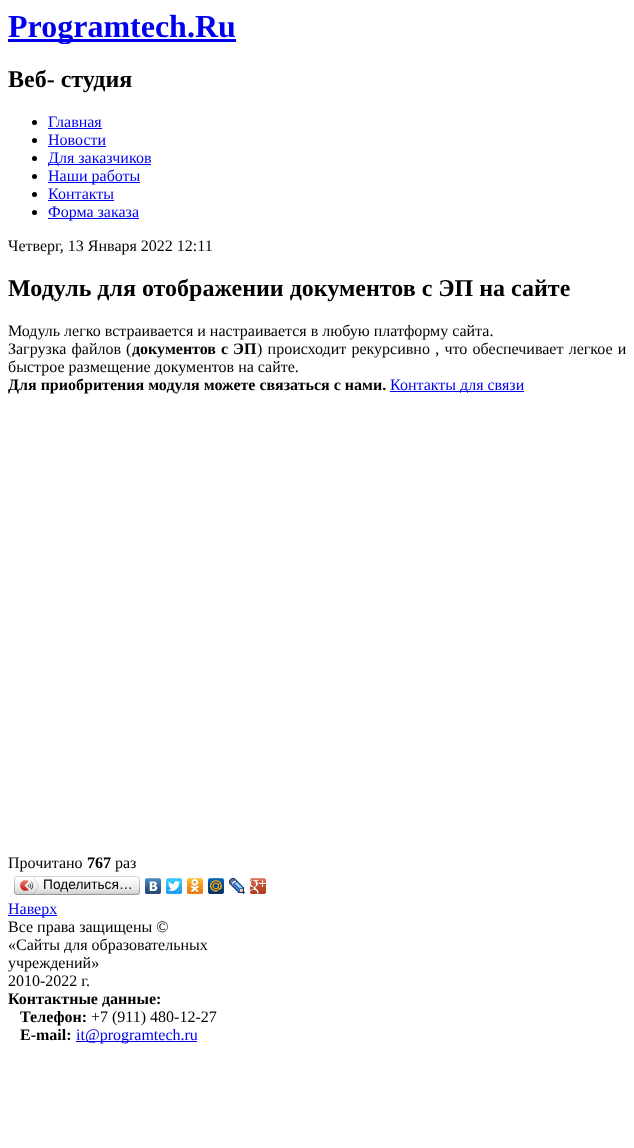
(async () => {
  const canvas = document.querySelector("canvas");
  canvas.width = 634;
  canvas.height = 1148;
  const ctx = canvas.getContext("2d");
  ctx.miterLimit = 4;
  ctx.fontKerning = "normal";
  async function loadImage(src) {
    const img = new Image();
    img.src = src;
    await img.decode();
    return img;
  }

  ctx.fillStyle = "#ffffff";
  ctx.fillRect(0, 0, 634, 1148);
  ctx.fillStyle = "#0000ee";
  ctx.fillRect(8, 39, 228, 3);
  ctx.fillStyle = "#000000";
  ctx.beginPath();
  ctx.arc(34.5, 122.5, 2.5, 0, Math.PI * 2);
  ctx.fill();
  ctx.fillStyle = "#0000ee";
  ctx.fillRect(48, 128, 54, 1);
  ctx.fillStyle = "#000000";
  ctx.beginPath();
  ctx.arc(34.5, 140.5, 2.5, 0, Math.PI * 2);
  ctx.fill();
  ctx.fillStyle = "#0000ee";
  ctx.fillRect(48, 146, 58, 1);
  ctx.fillStyle = "#000000";
  ctx.beginPath();
  ctx.arc(34.5, 158.5, 2.5, 0, Math.PI * 2);
  ctx.fill();
  ctx.fillStyle = "#0000ee";
  ctx.fillRect(48, 164, 103, 1);
  ctx.fillStyle = "#000000";
  ctx.beginPath();
  ctx.arc(34.5, 176.5, 2.5, 0, Math.PI * 2);
  ctx.fill();
  ctx.fillStyle = "#0000ee";
  ctx.fillRect(48, 182, 92, 1);
  ctx.fillStyle = "#000000";
  ctx.beginPath();
  ctx.arc(34.5, 194.5, 2.5, 0, Math.PI * 2);
  ctx.fill();
  ctx.fillStyle = "#0000ee";
  ctx.fillRect(48, 200, 66, 1);
  ctx.fillStyle = "#000000";
  ctx.beginPath();
  ctx.arc(34.5, 212.5, 2.5, 0, Math.PI * 2);
  ctx.fill();
  ctx.fillStyle = "#0000ee";
  ctx.fillRect(48, 218, 91, 1);
  ctx.fillRect(390, 391, 134, 1);
  ctx.drawImage(await loadImage("img/1.png"), 17, 876, 120, 19);
  ctx.drawImage(await loadImage("img/2.png"), 14, 876, 3, 19);
  ctx.drawImage(await loadImage("img/3.png"), 20, 877, 20, 17);
  ctx.drawImage(await loadImage("img/4.png"), 137, 876, 3, 19);
  ctx.drawImage(await loadImage("img/5.png"), 145, 878, 16, 16);
  ctx.drawImage(await loadImage("img/6.png"), 166, 878, 16, 16);
  ctx.drawImage(await loadImage("img/7.png"), 187, 878, 16, 16);
  ctx.drawImage(await loadImage("img/8.png"), 208, 878, 16, 16);
  ctx.drawImage(await loadImage("img/9.png"), 229, 878, 16, 16);
  ctx.drawImage(await loadImage("img/10.png"), 250, 878, 16, 16);
  ctx.fillRect(8, 915, 49, 1);
  ctx.fillRect(76, 1041, 121, 1);
  ctx.font = "bold 32px Liberation Serif";
  ctx.fillText("Programtech.Ru", 8, 37);
  ctx.font = "bold 24px Liberation Serif";
  ctx.fillStyle = "#000000";
  ctx.fillText("Веб- студия", 8, 87);
  ctx.font = "16px Liberation Serif";
  ctx.fillStyle = "#0000ee";
  for (const [text, x, y] of [
    ["Главная", 48, 127],
    ["Новости", 48, 145],
    ["Для заказчиков", 48, 163],
    ["Наши работы", 48, 181],
    ["Контакты", 48, 199],
    ["Форма заказа", 48, 217],
  ]) {
    ctx.fillText(text, x, y);
  }
  ctx.fillStyle = "#000000";
  ctx.fillText("Четверг, 13 Января 2022 12:11", 8, 251);
  ctx.font = "bold 24px Liberation Serif";
  ctx.fillText("Модуль для отображении документов c ЭП на сайте", 8, 296);
  ctx.font = "16px Liberation Serif";
  ctx.fillText("Модуль легко встраивается и настраивается в любую платформу сайта.", 8, 336);
  ctx.wordSpacing = "1px";
  ctx.fillText("Загрузка файлов (", 8, 354);
  ctx.font = "bold 16px Liberation Serif";
  ctx.fillText("документов с ЭП", 132, 354);
  ctx.wordSpacing = "1.25px";
  ctx.font = "16px Liberation Serif";
  ctx.fillText(") происходит рекурсивно , что обеспечивает легкое и", 257, 354);
  ctx.wordSpacing = "0px";
  ctx.fillText("быстрое размещение документов на сайте.", 8, 372);
  ctx.font = "bold 16px Liberation Serif";
  ctx.fillText("Для приобритения модуля можете связаться с нами.", 8, 390);
  ctx.font = "16px Liberation Serif";
  ctx.fillStyle = "#0000ee";
  ctx.fillText("Контакты для связи", 390, 390);
  ctx.fillStyle = "#000000";
  ctx.fillText("Прочитано", 8, 868);
  ctx.font = "bold 16px Liberation Serif";
  ctx.fillText("767", 87, 868);
  ctx.font = "16px Liberation Serif";
  ctx.fillText("раз", 115, 868);
  ctx.font = "13.75px Liberation Sans";
  ctx.fillText("Поделиться…", 43, 889);
  ctx.font = "16px Liberation Serif";
  ctx.fillStyle = "#0000ee";
  ctx.fillText("Наверх", 8, 914);
  ctx.fillStyle = "#000000";
  for (const [text, x, y] of [
    ["Все права защищены ©", 8, 932],
    ["«Сайты для образовательных", 8, 950],
    ["учреждений»", 8, 968],
    ["2010-2022 г.", 8, 986],
  ]) {
    ctx.fillText(text, x, y);
  }
  ctx.font = "bold 16px Liberation Serif";
  ctx.fillText("Контактные данные:", 8, 1004);
  ctx.fillText("Телефон:", 20, 1022);
  ctx.font = "16px Liberation Serif";
  ctx.fillText("+7 (911) 480-12-27", 91, 1022);
  ctx.font = "bold 16px Liberation Serif";
  ctx.fillText("E-mail:", 20, 1040);
  ctx.font = "16px Liberation Serif";
  ctx.fillStyle = "#0000ee";
  ctx.fillText("it@programtech.ru", 76, 1040);
})();
